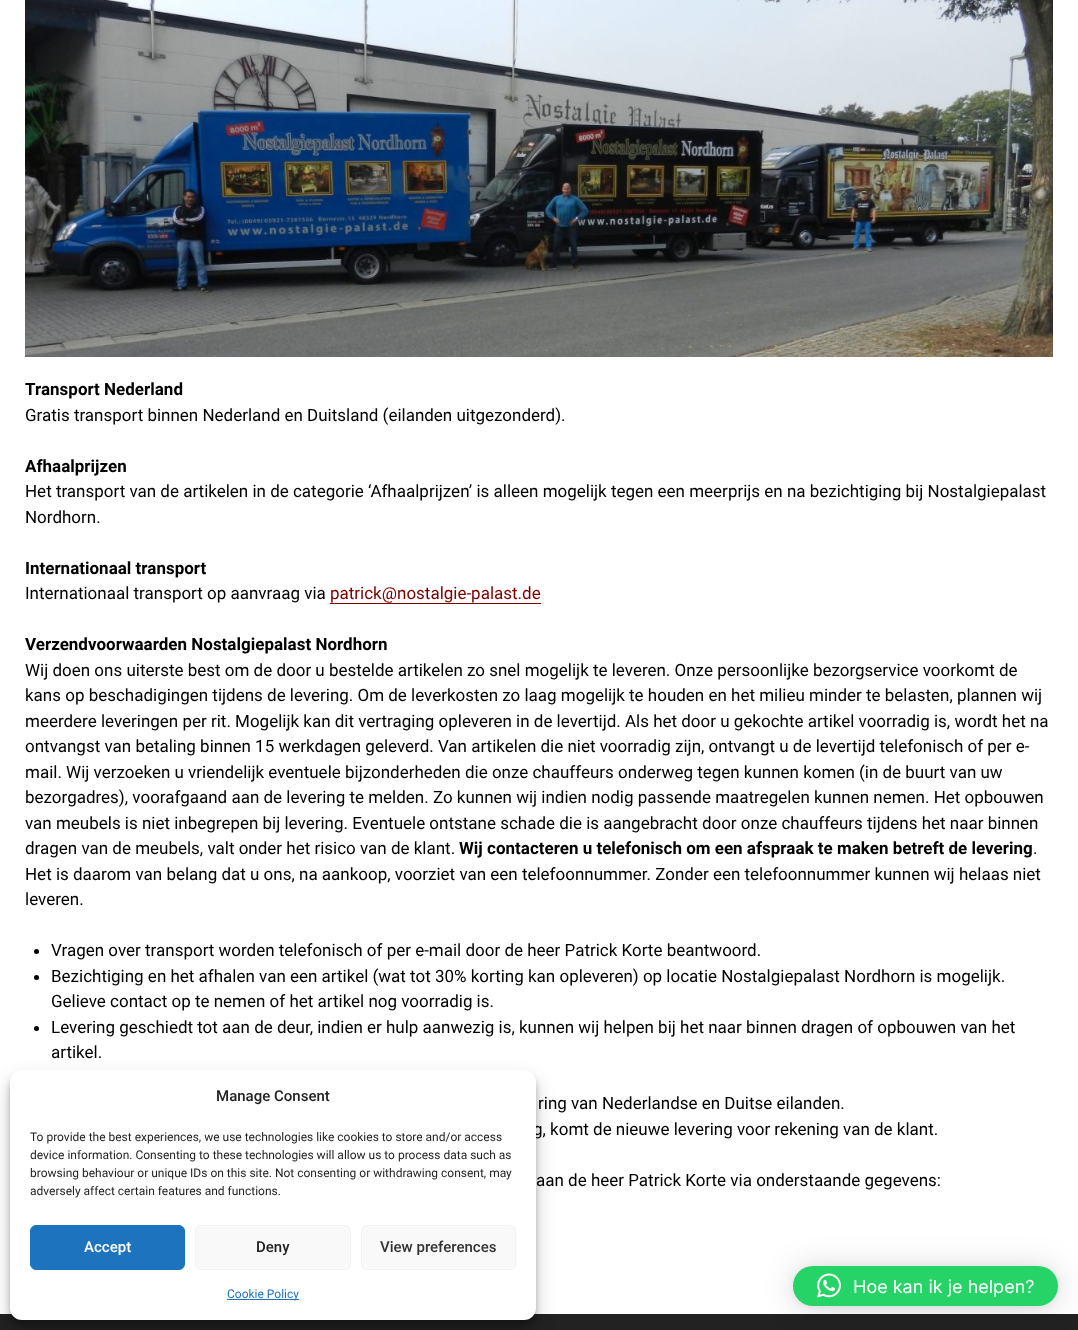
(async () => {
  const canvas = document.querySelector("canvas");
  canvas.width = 1078;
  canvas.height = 1330;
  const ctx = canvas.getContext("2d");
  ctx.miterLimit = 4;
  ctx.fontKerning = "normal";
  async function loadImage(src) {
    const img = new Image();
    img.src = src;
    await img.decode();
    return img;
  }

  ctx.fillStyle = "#ffffff";
  ctx.fillRect(0, 0, 1078, 1330);
  ctx.drawImage(await loadImage("img/1.png"), 25, 0, 1028, 357);
  ctx.fillStyle = "#7c0200";
  ctx.fillRect(330, 603, 211, 1);
  ctx.fillStyle = "#000000";
  ctx.beginPath();
  ctx.arc(36.5, 951.5, 2.5, 0, Math.PI * 2);
  ctx.fill();
  ctx.beginPath();
  ctx.arc(36.5, 977.5, 2.5, 0, Math.PI * 2);
  ctx.fill();
  ctx.beginPath();
  ctx.arc(36.5, 1028.5, 2.5, 0, Math.PI * 2);
  ctx.fill();
  ctx.fillStyle = "#222222";
  ctx.fillRect(0, 1314, 1078, 16);
  ctx.fillStyle = "rgba(0, 0, 0, 0.23)";
  ctx.filter = "blur(3px)";
  ctx.beginPath();
  ctx.roundRect(10, 1076, 526, 250, 12);
  ctx.fill();
  ctx.filter = "none";
  ctx.fillStyle = "rgba(0, 0, 0, 0.19)";
  ctx.filter = "blur(10px)";
  ctx.beginPath();
  ctx.roundRect(10, 1080, 526, 250, 12);
  ctx.fill();
  ctx.filter = "none";
  ctx.fillStyle = "rgba(0, 0, 0, 0.16)";
  ctx.filter = "blur(16px)";
  ctx.beginPath();
  ctx.roundRect(793, 1268, 265, 40, 20);
  ctx.fill();
  ctx.filter = "none";
  ctx.fillStyle = "rgba(0, 0, 0, 0.06)";
  ctx.filter = "blur(3px)";
  ctx.beginPath();
  ctx.roundRect(793, 1267, 265, 40, 20);
  ctx.fill();
  ctx.filter = "none";
  ctx.fillStyle = "#25d366";
  ctx.beginPath();
  ctx.roundRect(793, 1266, 265, 40, 20);
  ctx.fill();
  ctx.drawImage(await loadImage("img/2.png"), 817, 1273, 24, 25);
  ctx.font = "bold 17px Roboto";
  ctx.fillStyle = "#000000";
  ctx.fillText("Transport Nederland", 25, 395);
  ctx.font = "17px Roboto";
  ctx.fillText("Gratis transport binnen Nederland en Duitsland (eilanden uitgezonderd).", 25, 421);
  ctx.font = "bold 17px Roboto";
  ctx.fillText("Afhaalprijzen", 25, 472);
  ctx.font = "17px Roboto";
  ctx.fillText("Het transport van de artikelen in de categorie ‘Afhaalprijzen’ is alleen mogelijk tegen een meerprijs en na bezichtiging bij Nostalgiepalast", 25, 497);
  ctx.fillText("Nordhorn.", 25, 523);
  ctx.font = "bold 17px Roboto";
  ctx.fillText("Internationaal transport", 25, 574);
  ctx.font = "17px Roboto";
  ctx.fillText("Internationaal transport op aanvraag via", 25, 599);
  ctx.fillStyle = "#7c0200";
  ctx.fillText("patrick@nostalgie-palast.de", 330, 599);
  ctx.font = "bold 17px Roboto";
  ctx.fillStyle = "#000000";
  ctx.fillText("Verzendvoorwaarden Nostalgiepalast Nordhorn", 25, 650);
  ctx.font = "17px Roboto";
  for (const [text, x, y] of [
    ["Wij doen ons uiterste best om de door u bestelde artikelen zo snel mogelijk te leveren. Onze persoonlijke bezorgservice voorkomt de", 25, 676],
    ["kans op beschadigingen tijdens de levering. Om de leverkosten zo laag mogelijk te houden en het milieu minder te belasten, plannen wij", 25, 701],
    ["meerdere leveringen per rit. Mogelijk kan dit vertraging opleveren in de levertijd. Als het door u gekochte artikel voorradig is, wordt het na", 25, 727],
    ["ontvangst van betaling binnen 15 werkdagen geleverd. Van artikelen die niet voorradig zijn, ontvangt u de levertijd telefonisch of per e-", 25, 752],
    ["mail. Wij verzoeken u vriendelijk eventuele bijzonderheden die onze chauffeurs onderweg tegen kunnen komen (in de buurt van uw", 25, 778],
    ["bezorgadres), voorafgaand aan de levering te melden. Zo kunnen wij indien nodig passende maatregelen kunnen nemen. Het opbouwen", 25, 803],
    ["van meubels is niet inbegrepen bij levering. Eventuele ontstane schade die is aangebracht door onze chauffeurs tijdens het naar binnen", 25, 829],
    ["dragen van de meubels, valt onder het risico van de klant.", 25, 854],
  ]) {
    ctx.fillText(text, x, y);
  }
  ctx.font = "bold 17px Roboto";
  ctx.fillText("Wij contacteren u telefonisch om een afspraak te maken betreft de levering", 459, 854);
  ctx.font = "17px Roboto";
  for (const [text, x, y] of [
    [".", 1033, 854],
    ["Het is daarom van belang dat u ons, na aankoop, voorziet van een telefoonnummer. Zonder een telefoonnummer kunnen wij helaas niet", 25, 880],
    ["leveren.", 25, 905],
    ["Vragen over transport worden telefonisch of per e-mail door de heer Patrick Korte beantwoord.", 51, 956],
    ["Bezichtiging en het afhalen van een artikel (wat tot 30% korting kan opleveren) op locatie Nostalgiepalast Nordhorn is mogelijk.", 51, 982],
    ["Gelieve contact op te nemen of het artikel nog voorradig is.", 51, 1007],
    ["Levering geschiedt tot aan de deur, indien er hulp aanwezig is, kunnen wij helpen bij het naar binnen dragen of opbouwen van het", 51, 1033],
    ["artikel.", 51, 1058],
    ["ring van Nederlandse en Duitse eilanden.", 538, 1109],
    ["g, komt de nieuwe levering voor rekening van de klant.", 533, 1135],
    ["aan de heer Patrick Korte via onderstaande gegevens:", 536, 1186],
  ]) {
    ctx.fillText(text, x, y);
  }
  ctx.fillStyle = "#ffffff";
  ctx.beginPath();
  ctx.roundRect(10, 1070, 526, 250, 12);
  ctx.fill();
  ctx.font = "500 15px Roboto";
  ctx.fillStyle = "#222222";
  ctx.fillText("Manage Consent", 216, 1101);
  ctx.font = "12px Roboto";
  for (const [text, x, y] of [
    ["To provide the best experiences, we use technologies like cookies to store and/or access", 30, 1141],
    ["device information. Consenting to these technologies will allow us to process data such as", 30, 1159],
    ["browsing behaviour or unique IDs on this site. Not consenting or withdrawing consent, may", 30, 1177],
    ["adversely affect certain features and functions.", 30, 1195],
  ]) {
    ctx.fillText(text, x, y);
  }
  ctx.fillStyle = "#1e73be";
  ctx.beginPath();
  ctx.roundRect(30.5, 1225.5, 154, 44, 5.5);
  ctx.fill();
  ctx.strokeStyle = "#1e73be";
  ctx.stroke();
  ctx.font = "500 15px Roboto";
  ctx.fillStyle = "#ffffff";
  ctx.fillText("Accept", 84, 1252);
  ctx.fillStyle = "#f9f9f9";
  ctx.beginPath();
  ctx.roundRect(195.5, 1225.5, 155, 44, 5.5);
  ctx.fill();
  ctx.strokeStyle = "#f2f2f2";
  ctx.stroke();
  ctx.fillStyle = "#222222";
  ctx.fillText("Deny", 256, 1252);
  ctx.fillStyle = "#f9f9f9";
  ctx.beginPath();
  ctx.roundRect(361.5, 1225.5, 154, 44, 5.5);
  ctx.fill();
  ctx.stroke();
  ctx.fillStyle = "#333333";
  ctx.fillText("View preferences", 380, 1252);
  ctx.fillStyle = "#1e73be";
  ctx.fillRect(227, 1299, 72, 1);
  ctx.font = "12px Roboto";
  ctx.fillText("Cookie Policy", 227, 1298);
  ctx.font = "18px Inter";
  ctx.fillStyle = "#ffffff";
  ctx.fillText("Hoe kan ik je helpen?", 853, 1293);
})();
